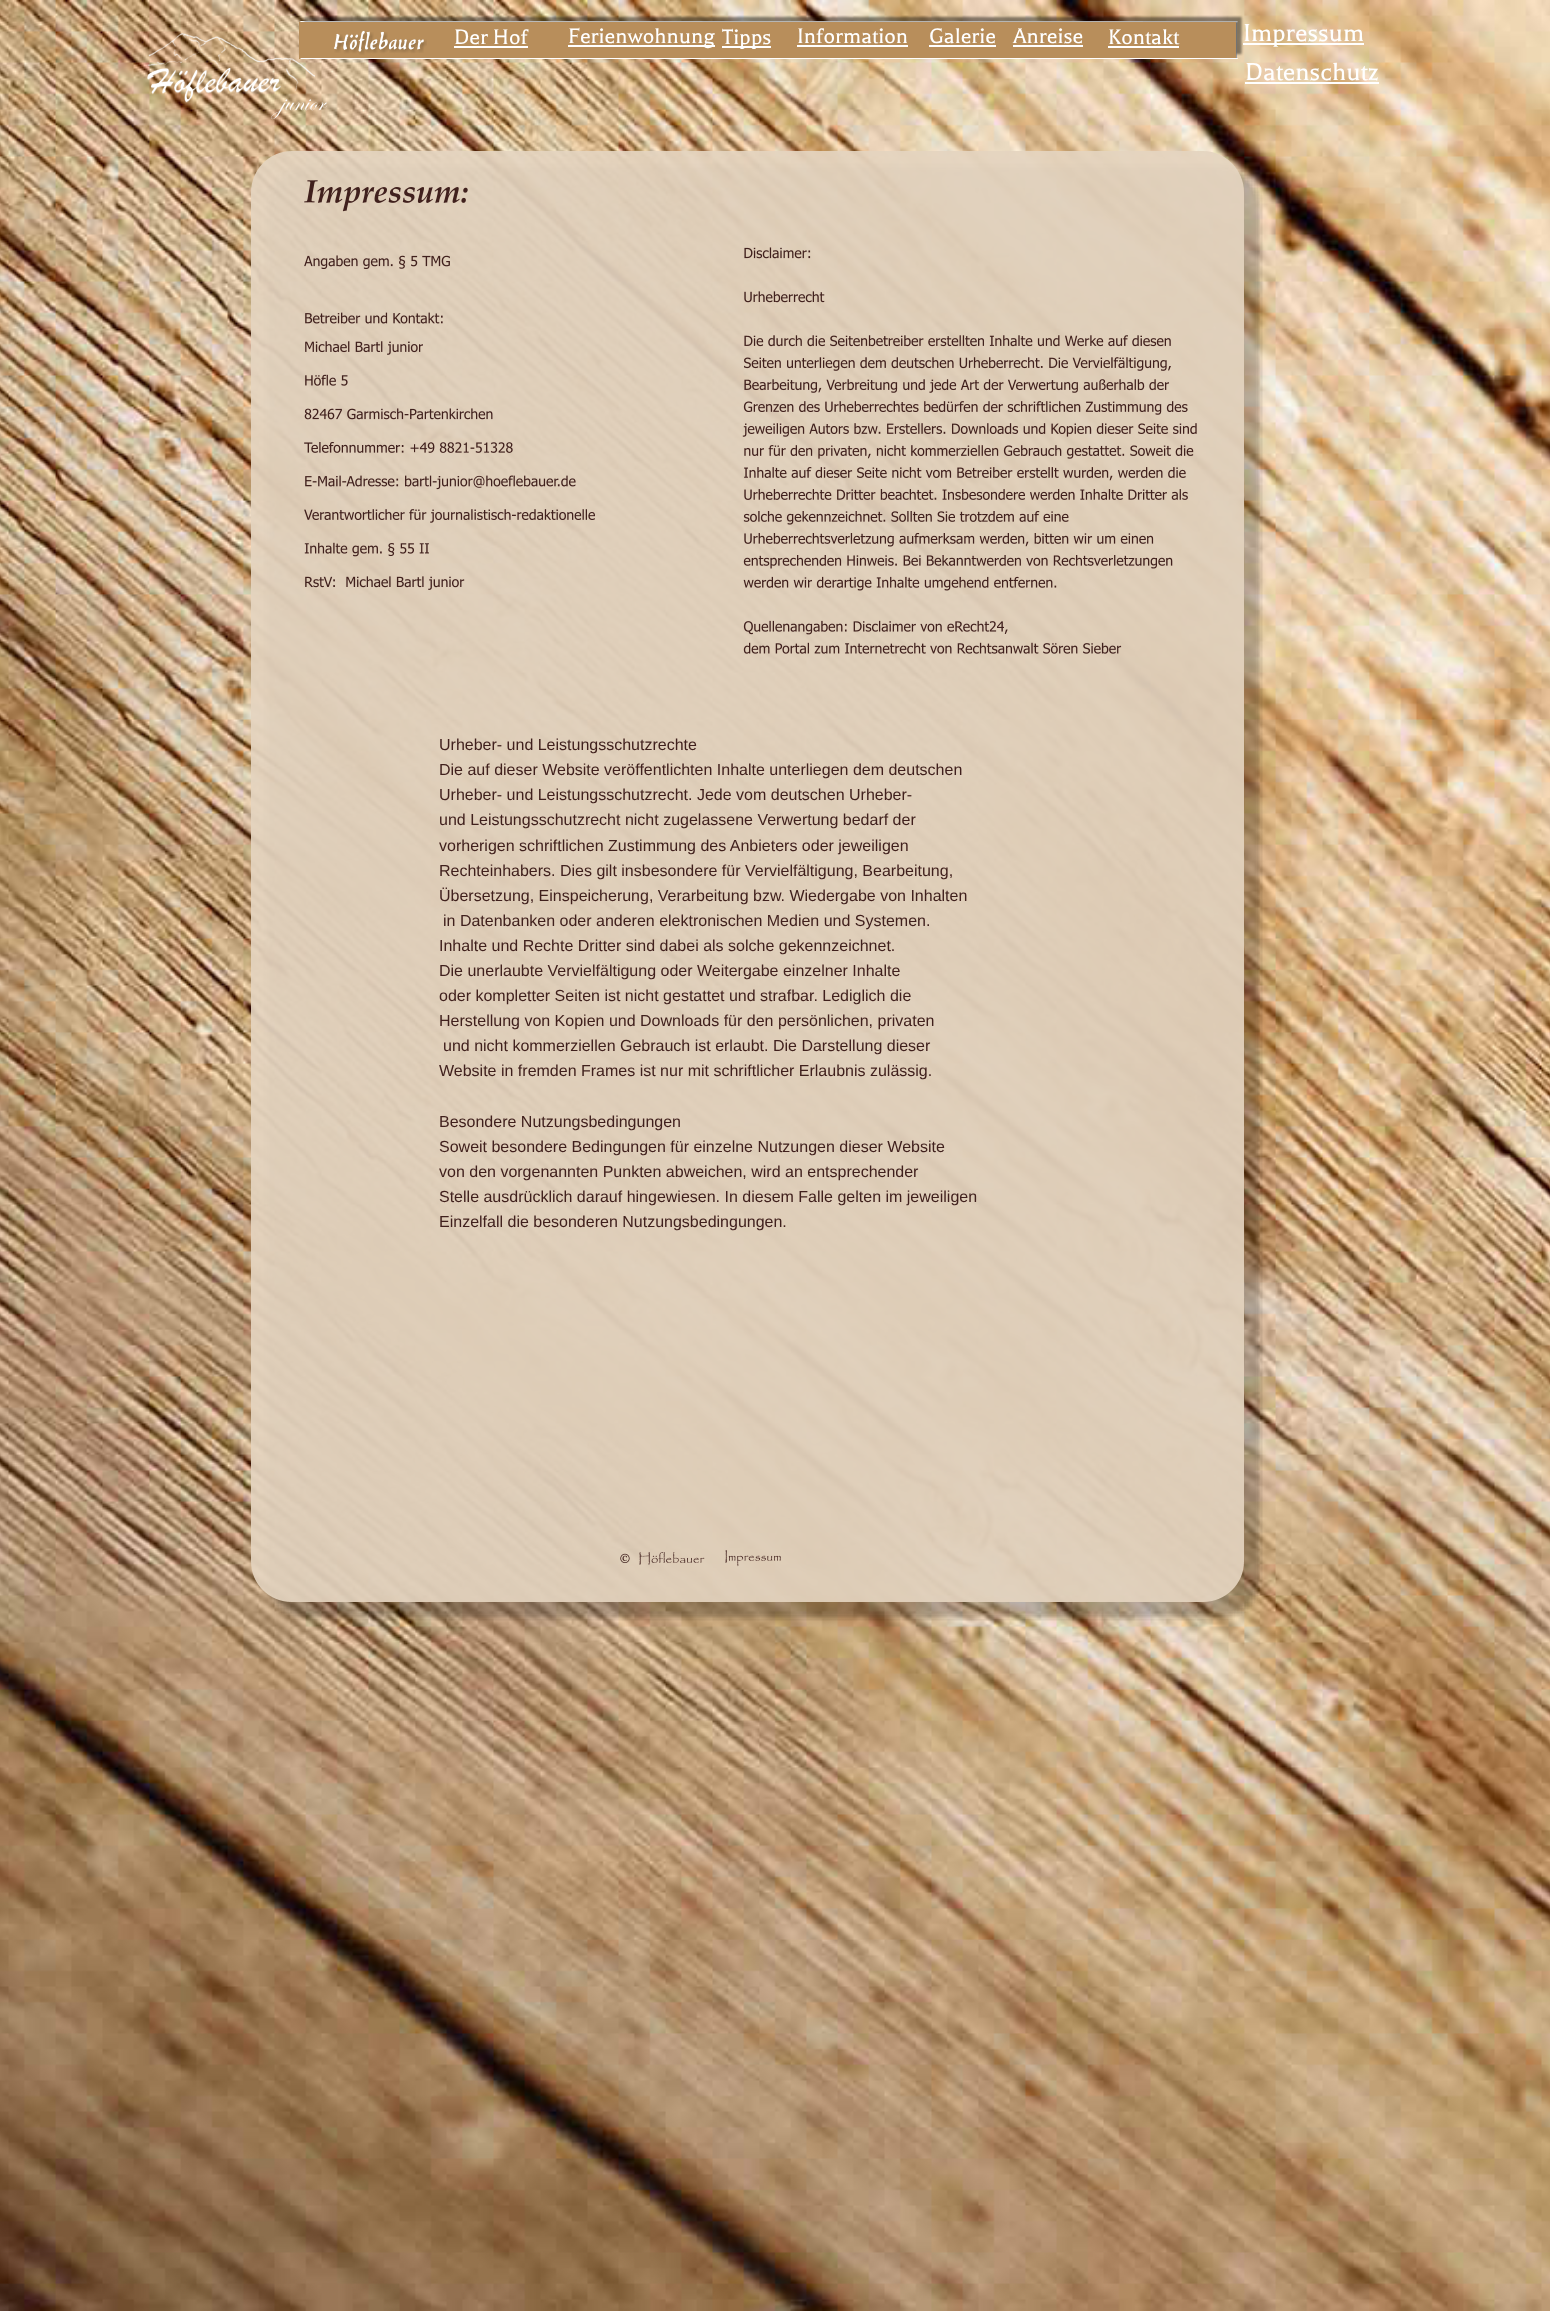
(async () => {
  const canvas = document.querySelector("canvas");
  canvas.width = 1550;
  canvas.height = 2311;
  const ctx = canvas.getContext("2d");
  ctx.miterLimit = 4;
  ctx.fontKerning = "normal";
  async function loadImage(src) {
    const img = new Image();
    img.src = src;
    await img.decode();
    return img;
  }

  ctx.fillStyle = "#ffffff";
  ctx.fillRect(0, 0, 1550, 2311);
  ctx.drawImage(await loadImage("img/1.png"), 0, 0, 1550, 2311);
  ctx.drawImage(await loadImage("img/2.png"), 300, 21, 938, 2);
  ctx.fillStyle = "rgba(0, 0, 0, 0.25)";
  ctx.filter = "blur(1px)";
  ctx.beginPath();
  ctx.rect(305, 17, 937, 37);
  ctx.fill();
  ctx.filter = "none";
  ctx.fillStyle = "#999999";
  ctx.fillRect(1236, 22, 1, 36);
  ctx.drawImage(await loadImage("img/3.png"), 300, 21, 938, 2);
  ctx.fillStyle = "rgba(0, 0, 0, 0.25)";
  ctx.filter = "blur(1px)";
  ctx.beginPath();
  ctx.rect(304, 17, 937, 37);
  ctx.fill();
  ctx.filter = "none";
  ctx.fillStyle = "#b88e5b";
  ctx.fillRect(299, 22, 937, 37);
  ctx.drawImage(await loadImage("img/7.png"), 1237, 58, 1, 1);
  ctx.drawImage(await loadImage("img/6.png"), 300, 58, 938, 1);
  ctx.drawImage(await loadImage("img/4.png"), 147, 33, 181, 87);
  ctx.drawImage(await loadImage("img/5.png"), 334, 30, 93, 25);
  for (const [x, y, w, h, color] of [
    [454, 46, 74, 2, "#ffffff"],
    [568, 45, 147, 2, "#ffffff"],
    [722, 46, 49, 2, "#ffffff"],
    [797, 45, 111, 2, "#ffffff"],
    [929, 45, 67, 2, "#ffffff"],
    [1013, 45, 70, 2, "#ffffff"],
    [1108, 46, 71, 2, "#ffffff"],
    [1243, 43, 121, 2, "#ffffff"],
    [1245, 82, 134, 2, "#ffffff"],
  ]) {
    ctx.fillStyle = color;
    ctx.fillRect(x, y, w, h);
  }
  ctx.drawImage(await loadImage("img/8.png"), 251, 151, 1012, 1470);
  ctx.drawImage(await loadImage("img/9.png"), 304, 180, 893, 474);
  ctx.drawImage(await loadImage("img/10.png"), 620, 1552, 85, 13);
  ctx.drawImage(await loadImage("img/11.png"), 725, 1550, 56, 17);
  ctx.font = "24px Balthazar";
  for (const [text, x, y] of [
    ["Der Hof", 454, 44],
    ["Ferienwohnung", 568, 43],
    ["Tipps", 722, 44],
    ["Information", 797, 43],
    ["Galerie", 929, 43],
    ["Anreise", 1013, 43],
    ["Kontakt", 1108, 44],
  ]) {
    ctx.fillText(text, x, y);
  }
  ctx.font = "28px Balthazar";
  ctx.fillText("Impressum", 1243, 41);
  ctx.fillText("Datenschutz", 1245, 80);
  ctx.font = "16px Liberation Sans";
  ctx.fillStyle = "#40201d";
  for (const [text, x, y] of [
    ["Urheber- und Leistungsschutzrechte", 439, 750],
    ["Die auf dieser Website veröffentlichten Inhalte unterliegen dem deutschen", 439, 775],
    ["Urheber- und Leistungsschutzrecht. Jede vom deutschen Urheber-", 439, 800],
    ["und Leistungsschutzrecht nicht zugelassene Verwertung bedarf der", 439, 825],
    ["vorherigen schriftlichen Zustimmung des Anbieters oder jeweiligen", 439, 851],
    ["Rechteinhabers. Dies gilt insbesondere für Vervielfältigung, Bearbeitung,", 439, 876],
    ["Übersetzung, Einspeicherung, Verarbeitung bzw. Wiedergabe von Inhalten", 439, 901],
    ["in Datenbanken oder anderen elektronischen Medien und Systemen.", 443, 926],
    ["Inhalte und Rechte Dritter sind dabei als solche gekennzeichnet.", 439, 951],
    ["Die unerlaubte Vervielfältigung oder Weitergabe einzelner Inhalte", 439, 976],
    ["oder kompletter Seiten ist nicht gestattet und strafbar. Lediglich die", 439, 1001],
    ["Herstellung von Kopien und Downloads für den persönlichen, privaten", 439, 1026],
    ["und nicht kommerziellen Gebrauch ist erlaubt. Die Darstellung dieser", 443, 1051],
    ["Website in fremden Frames ist nur mit schriftlicher Erlaubnis zulässig.", 439, 1076],
    ["Besondere Nutzungsbedingungen", 439, 1127],
    ["Soweit besondere Bedingungen für einzelne Nutzungen dieser Website", 439, 1152],
    ["von den vorgenannten Punkten abweichen, wird an entsprechender", 439, 1177],
    ["Stelle ausdrücklich darauf hingewiesen. In diesem Falle gelten im jeweiligen", 439, 1202],
    ["Einzelfall die besonderen Nutzungsbedingungen.", 439, 1227],
  ]) {
    ctx.fillText(text, x, y);
  }
})();
